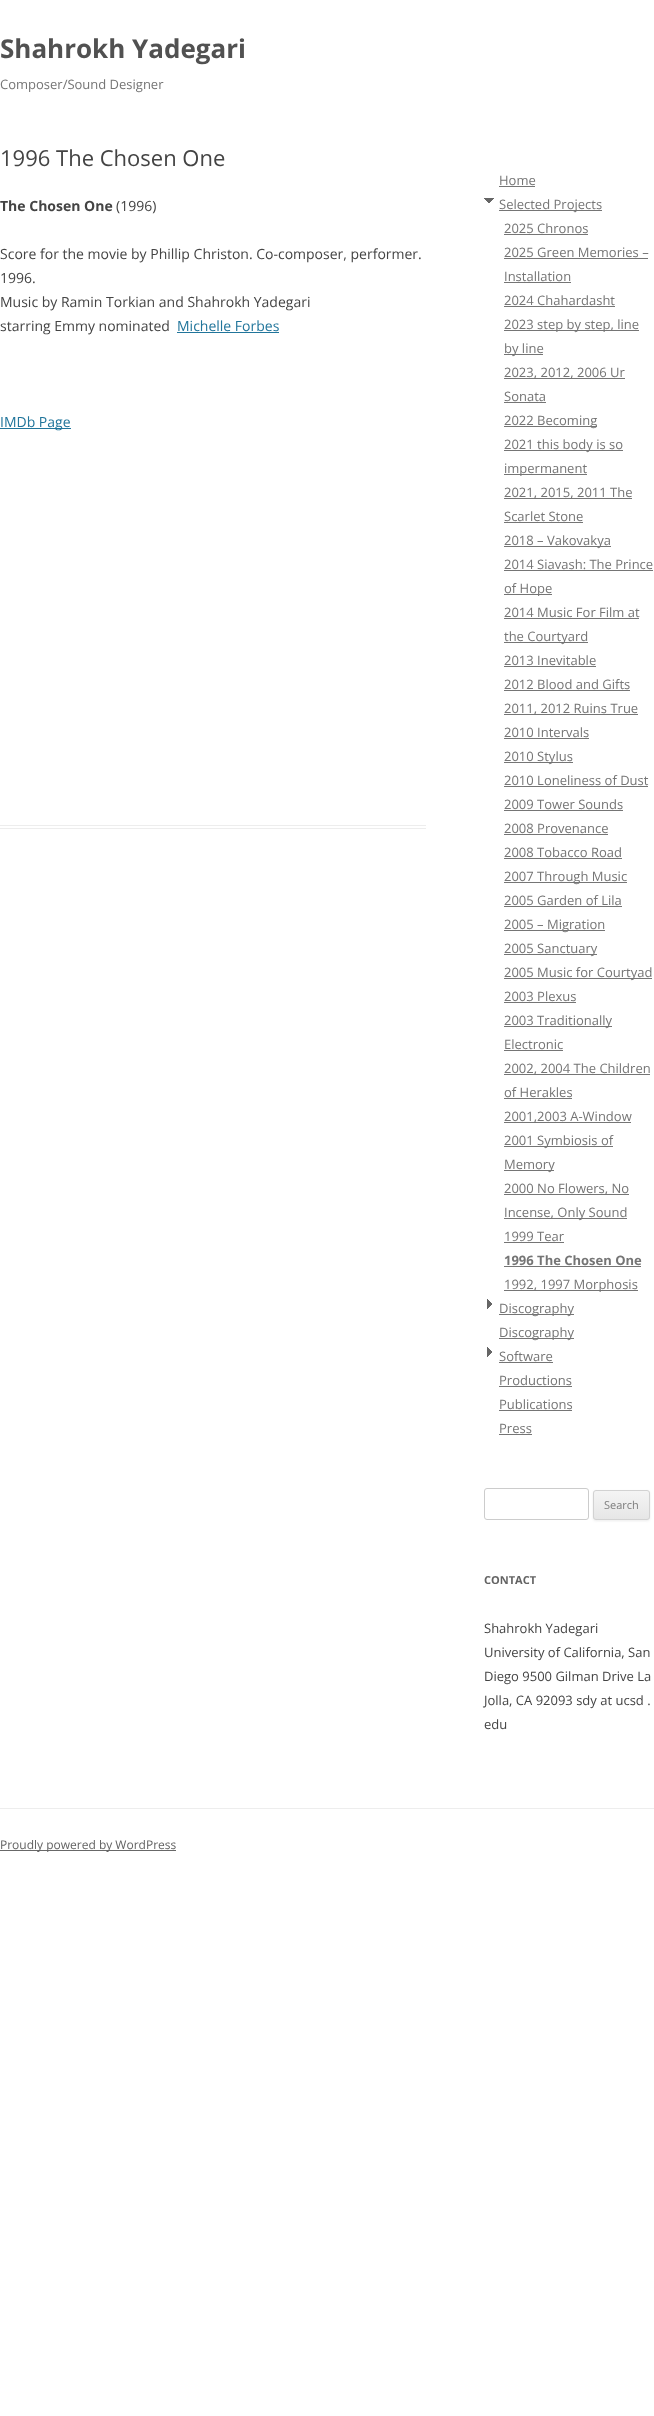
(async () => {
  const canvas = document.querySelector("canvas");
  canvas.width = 654;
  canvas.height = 2416;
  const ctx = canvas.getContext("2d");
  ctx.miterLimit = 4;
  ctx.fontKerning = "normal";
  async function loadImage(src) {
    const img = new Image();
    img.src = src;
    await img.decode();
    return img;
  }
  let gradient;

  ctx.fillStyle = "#ffffff";
  ctx.fillRect(0, 0, 654, 2416);
  for (const [x, y, w, h, color] of [
    [0, 825, 426, 1, "#ededed"],
    [0, 828, 426, 1, "#ededed"],
    [177, 332, 102, 1, "#21759b"],
    [0, 428, 71, 1, "#21759b"],
    [499, 186, 36, 1, "#757575"],
  ]) {
    ctx.fillStyle = color;
    ctx.fillRect(x, y, w, h);
  }
  ctx.drawImage(await loadImage("img/1.png"), 484, 198, 10, 5);
  for (const [x, y, w, h, color] of [
    [499, 210, 103, 1, "#757575"],
    [504, 234, 84, 1, "#757575"],
    [504, 258, 144, 1, "#757575"],
    [504, 282, 67, 1, "#757575"],
    [504, 306, 111, 1, "#757575"],
    [504, 330, 135, 1, "#757575"],
    [504, 354, 39, 1, "#757575"],
    [504, 378, 121, 1, "#757575"],
    [504, 402, 42, 1, "#757575"],
    [504, 426, 93, 1, "#757575"],
    [504, 450, 119, 1, "#757575"],
    [504, 474, 83, 1, "#757575"],
    [504, 498, 128, 1, "#757575"],
    [504, 522, 79, 1, "#757575"],
    [504, 546, 107, 1, "#757575"],
    [504, 570, 149, 1, "#757575"],
    [504, 594, 48, 1, "#757575"],
    [504, 618, 135, 1, "#757575"],
    [504, 642, 84, 1, "#757575"],
    [504, 666, 92, 1, "#757575"],
    [504, 690, 126, 1, "#757575"],
    [504, 714, 134, 1, "#757575"],
    [504, 738, 85, 1, "#757575"],
    [504, 762, 69, 1, "#757575"],
    [504, 786, 144, 1, "#757575"],
    [504, 810, 119, 1, "#757575"],
    [504, 834, 104, 1, "#757575"],
    [504, 858, 118, 1, "#757575"],
    [504, 882, 123, 1, "#757575"],
    [504, 906, 118, 1, "#757575"],
    [504, 930, 101, 1, "#757575"],
    [504, 954, 93, 1, "#757575"],
    [504, 978, 148, 1, "#757575"],
    [504, 1002, 72, 1, "#757575"],
    [504, 1026, 108, 1, "#757575"],
    [504, 1050, 59, 1, "#757575"],
    [504, 1074, 146, 1, "#757575"],
    [504, 1098, 68, 1, "#757575"],
    [504, 1122, 127, 1, "#757575"],
    [504, 1146, 109, 1, "#757575"],
    [504, 1170, 50, 1, "#757575"],
    [504, 1194, 125, 1, "#757575"],
    [504, 1218, 123, 1, "#757575"],
    [504, 1242, 60, 1, "#757575"],
    [504, 1266, 137, 1, "#757575"],
    [504, 1290, 134, 1, "#757575"],
  ]) {
    ctx.fillStyle = color;
    ctx.fillRect(x, y, w, h);
  }
  ctx.drawImage(await loadImage("img/2.png"), 487, 1299, 5, 10);
  ctx.fillRect(499, 1314, 75, 1);
  ctx.fillRect(499, 1338, 75, 1);
  ctx.drawImage(await loadImage("img/2.png"), 487, 1347, 5, 10);
  for (const [x, y, w, h, color] of [
    [499, 1362, 54, 1, "#757575"],
    [499, 1386, 73, 1, "#757575"],
    [499, 1410, 73, 1, "#757575"],
    [499, 1434, 33, 1, "#757575"],
  ]) {
    ctx.fillStyle = color;
    ctx.fillRect(x, y, w, h);
  }
  ctx.beginPath();
  ctx.roundRect(484.5, 1488.5, 104, 31, 2.5);
  ctx.strokeStyle = "#cccccc";
  ctx.stroke();
  ctx.fillStyle = "rgba(64, 64, 64, 0.1)";
  ctx.filter = "blur(1px)";
  ctx.beginPath();
  ctx.roundRect(593, 1491, 57, 30, 3);
  ctx.fill();
  ctx.filter = "none";
  ctx.save();
  ctx.beginPath();
  ctx.roundRect(593, 1490, 57, 30, 3);
  ctx.clip();
  gradient = ctx.createLinearGradient(622, 1491, 622, 1519);
  gradient.addColorStop(0, "#f4f4f4");
  gradient.addColorStop(1, "#e6e6e6");
  ctx.fillStyle = gradient;
  ctx.fillRect(593, 1491, 57, 28);
  ctx.restore();
  ctx.beginPath();
  ctx.roundRect(593.5, 1490.5, 56, 29, 2.5);
  ctx.strokeStyle = "#d2d2d2";
  ctx.stroke();
  ctx.fillStyle = "#ededed";
  ctx.fillRect(0, 1808, 654, 1);
  ctx.fillStyle = "#686868";
  ctx.fillRect(0, 1850, 176, 1);
  ctx.font = "bold 26px Open Sans";
  ctx.fillStyle = "#515151";
  ctx.fillText("Shahrokh Yadegari", 0, 58);
  ctx.font = "13px Open Sans";
  ctx.fillStyle = "#757575";
  ctx.fillText("Composer/Sound Designer", 0, 89);
  ctx.font = "22px Open Sans";
  ctx.fillStyle = "#444444";
  ctx.fillText("1996 The Chosen One", 0, 166);
  ctx.font = "bold 14px Open Sans";
  ctx.fillText("The Chosen One", 0, 211);
  ctx.font = "14px Open Sans";
  for (const [text, x, y] of [
    ["(1996)", 116, 211],
    ["Score for the movie by Phillip Christon. Co-composer, performer.", 0, 259],
    ["1996.", 0, 283],
    ["Music by Ramin Torkian and Shahrokh Yadegari", 0, 307],
    ["starring Emmy nominated", 0, 331],
  ]) {
    ctx.fillText(text, x, y);
  }
  ctx.fillStyle = "#21759b";
  ctx.fillText("Michelle Forbes", 177, 331);
  ctx.fillText("IMDb Page", 0, 427);
  ctx.font = "13px Open Sans";
  ctx.fillStyle = "#757575";
  for (const [text, x, y] of [
    ["Home", 499, 185],
    ["Selected Projects", 499, 209],
    ["2025 Chronos", 504, 233],
    ["2025 Green Memories –", 504, 257],
    ["Installation", 504, 281],
    ["2024 Chahardasht", 504, 305],
    ["2023 step by step, line", 504, 329],
    ["by line", 504, 353],
    ["2023, 2012, 2006 Ur", 504, 377],
    ["Sonata", 504, 401],
    ["2022 Becoming", 504, 425],
    ["2021 this body is so", 504, 449],
    ["impermanent", 504, 473],
    ["2021, 2015, 2011 The", 504, 497],
    ["Scarlet Stone", 504, 521],
    ["2018 – Vakovakya", 504, 545],
    ["2014 Siavash: The Prince", 504, 569],
    ["of Hope", 504, 593],
    ["2014 Music For Film at", 504, 617],
    ["the Courtyard", 504, 641],
    ["2013 Inevitable", 504, 665],
    ["2012 Blood and Gifts", 504, 689],
    ["2011, 2012 Ruins True", 504, 713],
    ["2010 Intervals", 504, 737],
    ["2010 Stylus", 504, 761],
    ["2010 Loneliness of Dust", 504, 785],
    ["2009 Tower Sounds", 504, 809],
    ["2008 Provenance", 504, 833],
    ["2008 Tobacco Road", 504, 857],
    ["2007 Through Music", 504, 881],
    ["2005 Garden of Lila", 504, 905],
    ["2005 – Migration", 504, 929],
    ["2005 Sanctuary", 504, 953],
    ["2005 Music for Courtyad", 504, 977],
    ["2003 Plexus", 504, 1001],
    ["2003 Traditionally", 504, 1025],
    ["Electronic", 504, 1049],
    ["2002, 2004 The Children", 504, 1073],
    ["of Herakles", 504, 1097],
    ["2001,2003 A-Window", 504, 1121],
    ["2001 Symbiosis of", 504, 1145],
    ["Memory", 504, 1169],
    ["2000 No Flowers, No", 504, 1193],
    ["Incense, Only Sound", 504, 1217],
    ["1999 Tear", 504, 1241],
  ]) {
    ctx.fillText(text, x, y);
  }
  ctx.font = "bold 13px Open Sans";
  ctx.fillText("1996 The Chosen One", 504, 1265);
  ctx.font = "13px Open Sans";
  for (const [text, x, y] of [
    ["1992, 1997 Morphosis", 504, 1289],
    ["Discography", 499, 1313],
    ["Discography", 499, 1337],
    ["Software", 499, 1361],
    ["Productions", 499, 1385],
    ["Publications", 499, 1409],
    ["Press", 499, 1433],
  ]) {
    ctx.fillText(text, x, y);
  }
  ctx.font = "11px Open Sans";
  ctx.fillStyle = "#7c7c7c";
  ctx.fillText("Search", 604, 1509);
  ctx.font = "bold 11px Open Sans";
  ctx.fillStyle = "#636363";
  ctx.fillText("CONTACT", 484, 1584);
  ctx.font = "13px Open Sans";
  ctx.fillStyle = "#444444";
  for (const [text, x, y] of [
    ["Shahrokh Yadegari", 484, 1633],
    ["University of California, San", 484, 1657],
    ["Diego 9500 Gilman Drive La", 484, 1681],
    ["Jolla, CA 92093 sdy at ucsd .", 484, 1705],
    ["edu", 484, 1729],
  ]) {
    ctx.fillText(text, x, y);
  }
  ctx.font = "12px Open Sans";
  ctx.fillStyle = "#636363";
  ctx.fillText("Proudly powered by WordPress", 0, 1849);
})();
